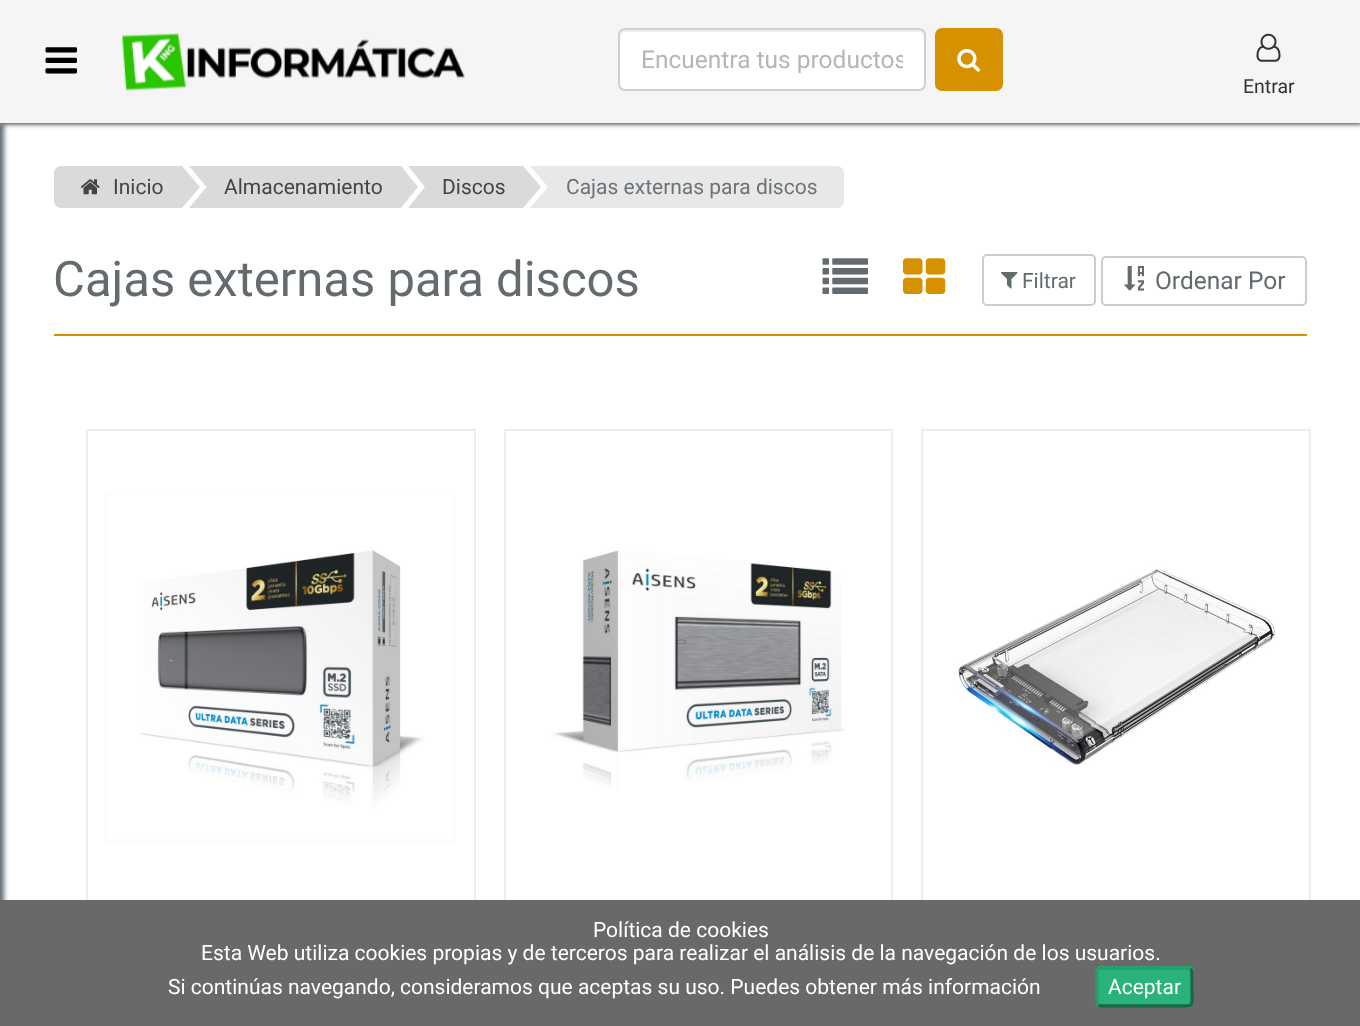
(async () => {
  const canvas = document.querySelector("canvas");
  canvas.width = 1360;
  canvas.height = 1026;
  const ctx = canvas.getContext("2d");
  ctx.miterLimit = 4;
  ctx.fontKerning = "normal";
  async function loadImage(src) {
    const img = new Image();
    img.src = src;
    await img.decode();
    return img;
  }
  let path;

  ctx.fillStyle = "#ffffff";
  ctx.fillRect(0, 0, 1360, 1026);
  ctx.fillStyle = "#636b6f";
  ctx.filter = "blur(2.5px)";
  ctx.beginPath();
  ctx.rect(-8, 123, 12, 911);
  ctx.fill();
  ctx.filter = "none";
  ctx.fillStyle = "#f5f5f5";
  ctx.fillRect(0, 0, 1360, 123);
  ctx.save();
  path = new Path2D("M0 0H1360V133H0ZM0 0H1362V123H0Z");
  ctx.clip(path, "evenodd");
  ctx.fillStyle = "#333333";
  ctx.filter = "blur(2.5px)";
  ctx.beginPath();
  ctx.rect(0, 2, 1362, 122);
  ctx.fill();
  ctx.filter = "none";
  ctx.restore();
  ctx.drawImage(await loadImage("img/1.png"), 45, 47, 32, 27);
  ctx.drawImage(await loadImage("img/2.png"), 122, 33, 343, 58);
  ctx.fillStyle = "#ffffff";
  ctx.beginPath();
  ctx.roundRect(618, 28, 308, 63, 7);
  ctx.fill();
  ctx.fillStyle = "#ececec";
  path = new Path2D("M625 32H919C922 32 924 34 924 37C924 34 923 30 919 30H625C621 30 620 34 620 37C620 34 622 32 625 32Z");
  ctx.fill(path);
  ctx.beginPath();
  ctx.roundRect(619, 29, 306, 61, 6);
  ctx.strokeStyle = "#ccd0d2";
  ctx.lineWidth = 2;
  ctx.stroke();
  ctx.fillStyle = "#d59100";
  ctx.beginPath();
  ctx.roundRect(935, 28, 68, 63, 7);
  ctx.fill();
  ctx.drawImage(await loadImage("img/3.png"), 957, 49, 23, 23);
  ctx.drawImage(await loadImage("img/4.png"), 1256, 33, 25, 29);
  ctx.fillStyle = "#dadada";
  ctx.beginPath();
  ctx.roundRect(54, 166, 128, 42, [7, 0, 0, 7]);
  ctx.fill();
  ctx.drawImage(await loadImage("img/5.png"), 80, 179, 20, 16);
  path = new Path2D("M182 208V166L200 187Z");
  ctx.fill(path);
  ctx.fillRect(224, 166, 177, 42);
  path = new Path2D("M189 166H224L206.5 187Z");
  ctx.fill(path);
  ctx.fillRect(207, 166, 17, 42);
  path = new Path2D("M224 208H189L206.5 187Z");
  ctx.fill(path);
  path = new Path2D("M401 208V166L418 187Z");
  ctx.fill(path);
  ctx.fillRect(443, 166, 80, 42);
  path = new Path2D("M408 166H443L425 187Z");
  ctx.fill(path);
  ctx.fillRect(425, 166, 18, 42);
  path = new Path2D("M443 208H408L425 187Z");
  ctx.fill(path);
  path = new Path2D("M523 208V166L541 187Z");
  ctx.fill(path);
  ctx.fillStyle = "#e8e8e8";
  ctx.beginPath();
  ctx.roundRect(557, 166, 287, 42, [0, 7, 7, 0]);
  ctx.fill();
  path = new Path2D("M530 166H565L548 187Z");
  ctx.fill(path);
  ctx.fillRect(548, 176, 9, 32);
  path = new Path2D("M565 208H530L548 187Z");
  ctx.fill(path);
  ctx.fillStyle = "#d59100";
  ctx.fillRect(54, 334, 1253, 2);
  ctx.drawImage(await loadImage("img/6.png"), 822, 258, 46, 36);
  ctx.drawImage(await loadImage("img/7.png"), 903, 258, 43, 36);
  ctx.beginPath();
  ctx.roundRect(983, 255, 112, 50, 4);
  ctx.strokeStyle = "#cccccc";
  ctx.stroke();
  ctx.drawImage(await loadImage("img/8.png"), 1001, 272, 17, 17);
  ctx.beginPath();
  ctx.roundRect(1102, 257, 204, 48, 4);
  ctx.stroke();
  ctx.drawImage(await loadImage("img/9.png"), 1124, 266, 20, 25);
  ctx.strokeStyle = "#eeeeee";
  ctx.strokeRect(87, 430, 388, 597);
  ctx.drawImage(await loadImage("img/10.png"), 105, 492, 350, 350);
  ctx.strokeRect(505, 430, 387, 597);
  ctx.drawImage(await loadImage("img/11.png"), 550, 550, 296, 239);
  ctx.strokeRect(922, 430, 388, 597);
  ctx.drawImage(await loadImage("img/12.png"), 958, 566, 317, 199);
  ctx.fillStyle = "#696969";
  ctx.fillRect(0, 900, 1360, 126);
  ctx.fillStyle = "#2ab27b";
  ctx.beginPath();
  ctx.roundRect(1096, 966, 98, 42, 5);
  ctx.fill();
  path = new Path2D("M1190.5 969C1192.5 970.5 1192 974.5 1192 976.5V987C1192 1009 1196 1006 1173.5 1006H1101L1098.5 1005");
  ctx.strokeStyle = "#196949";
  ctx.lineWidth = 3.5;
  ctx.stroke(path);
  path = new Path2D("M1098.5 1005C1096.5 1003.5 1097 999.5 1097 997.5V987C1097 965 1093 968 1115.5 968H1188L1190.5 969");
  ctx.strokeStyle = "#259d6d";
  ctx.stroke(path);
  ctx.save();
  ctx.beginPath();
  ctx.rect(641, 46, 262, 28);
  ctx.clip();
  ctx.font = "24.5px Roboto";
  ctx.fillStyle = "#b1b7ba";
  ctx.fillText("Encuentra tus productos", 641, 68);
  ctx.restore();
  ctx.font = "19.5px Roboto";
  ctx.fillStyle = "#333333";
  ctx.fillText("Entrar", 1243, 93);
  ctx.font = "21px Roboto";
  ctx.fillStyle = "#444444";
  for (const [text, x, y] of [
    ["Inicio", 113, 194],
    ["Almacenamiento", 224, 194],
    ["Discos", 442, 194],
  ]) {
    ctx.fillText(text, x, y);
  }
  ctx.fillStyle = "#6a737a";
  ctx.fillText("Cajas externas para discos", 566, 194);
  ctx.font = "49px Roboto";
  ctx.fillStyle = "#636b6f";
  ctx.fillText("Cajas externas para discos", 53, 296);
  ctx.font = "21px Roboto";
  ctx.fillText("Filtrar", 1022, 288);
  ctx.font = "24.5px Roboto";
  ctx.fillText("Ordenar Por", 1155, 289);
  ctx.font = "21px Roboto";
  ctx.fillStyle = "#ffffff";
  for (const [text, x, y] of [
    ["Política de cookies", 593, 937],
    ["Esta Web utiliza cookies propias y de terceros para realizar el análisis de la navegación de los usuarios.", 201, 960],
    ["Si continúas navegando, consideramos que aceptas su uso. Puedes obtener más información", 168, 994],
    ["Aceptar", 1108, 994],
  ]) {
    ctx.fillText(text, x, y);
  }
})();
